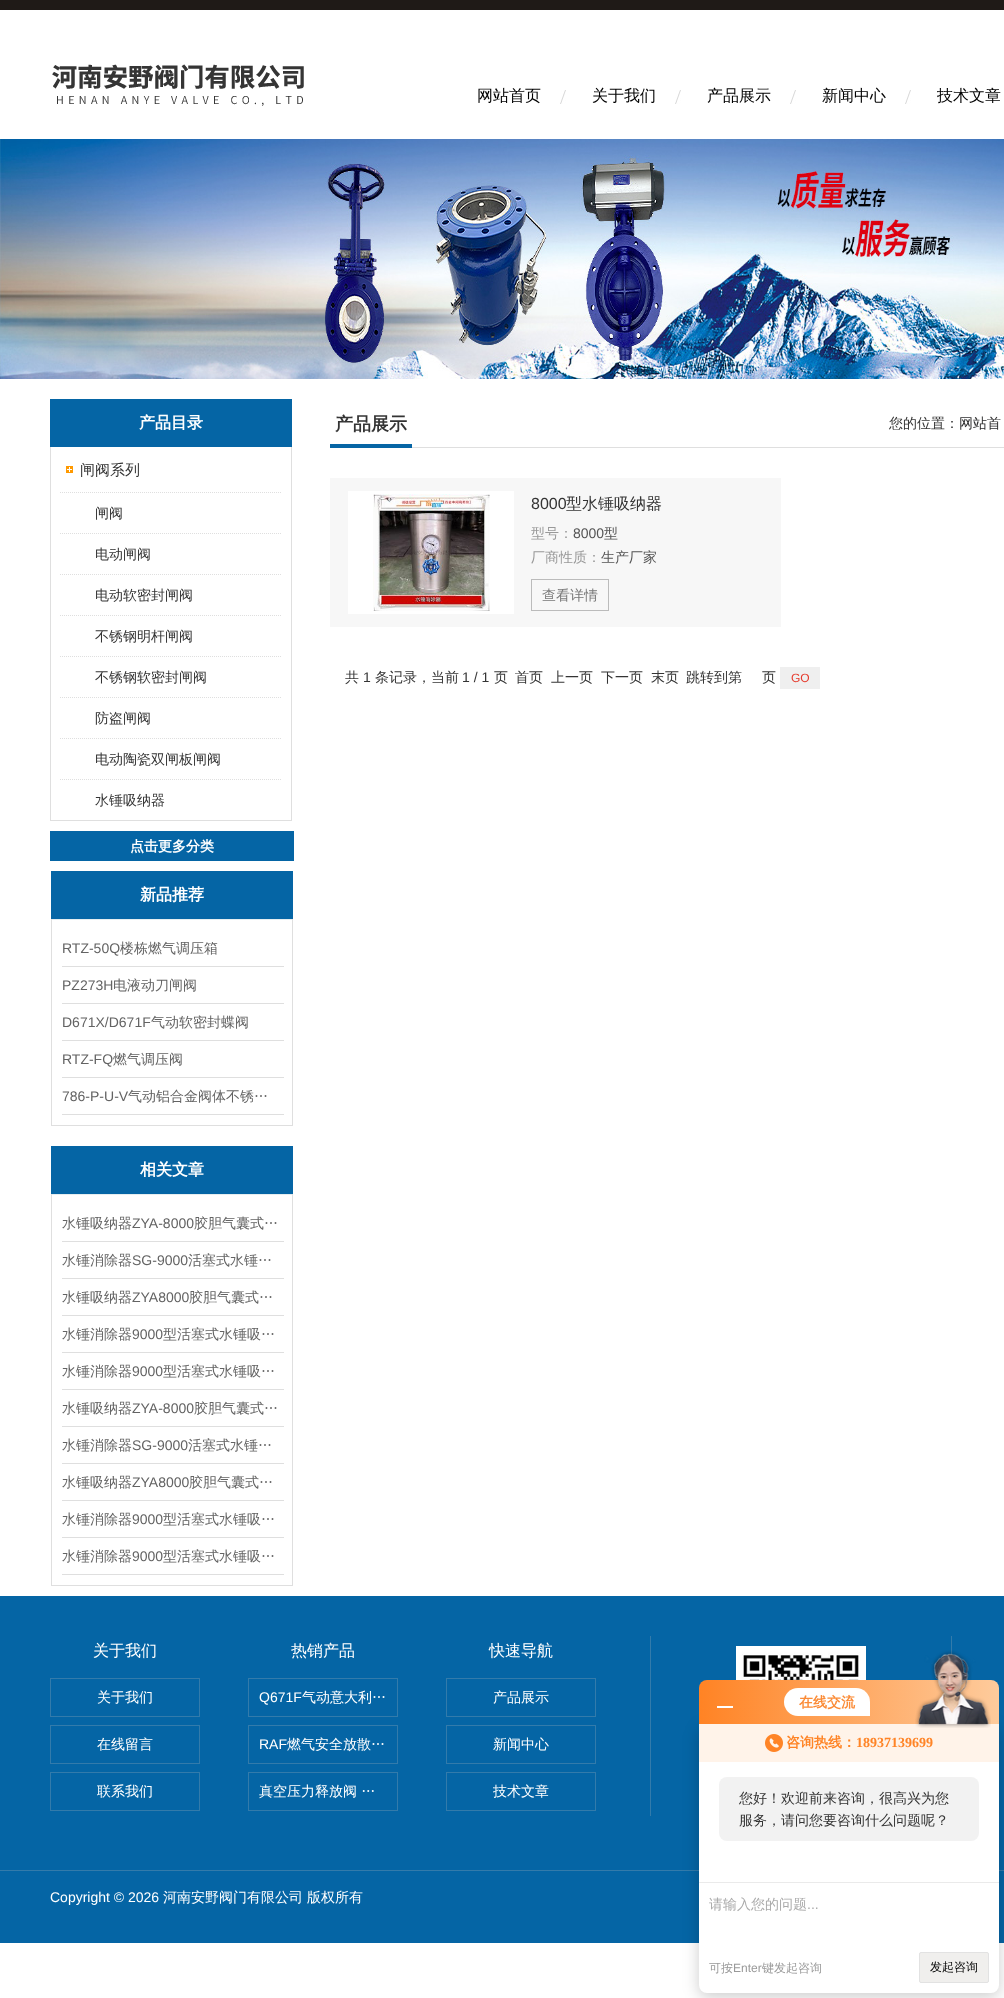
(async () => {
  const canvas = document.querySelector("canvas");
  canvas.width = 1004;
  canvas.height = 1998;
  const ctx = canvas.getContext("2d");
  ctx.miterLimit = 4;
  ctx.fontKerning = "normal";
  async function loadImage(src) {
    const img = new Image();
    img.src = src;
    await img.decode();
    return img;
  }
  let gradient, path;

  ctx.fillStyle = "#ffffff";
  ctx.fillRect(0, 0, 1004, 1998);
  ctx.fillStyle = "#1f1a17";
  ctx.fillRect(0, 0, 1004, 10);
  ctx.drawImage(await loadImage("img/1.png"), 52, 64, 252, 42);
  ctx.drawImage(await loadImage("img/2.png"), 560, 90, 6, 14);
  ctx.drawImage(await loadImage("img/2.png"), 675, 90, 6, 14);
  ctx.drawImage(await loadImage("img/2.png"), 790, 90, 6, 14);
  ctx.drawImage(await loadImage("img/2.png"), 905, 90, 6, 14);
  ctx.drawImage(await loadImage("img/3.png"), 0, 139, 1004, 240);
  for (const [x, y, w, h, color] of [
    [50, 399, 242, 48, "#0565a5"],
    [291, 447, 1, 374, "#dfdfdf"],
    [50, 820, 242, 1, "#dfdfdf"],
    [50, 447, 1, 374, "#dfdfdf"],
  ]) {
    ctx.fillStyle = color;
    ctx.fillRect(x, y, w, h);
  }
  ctx.drawImage(await loadImage("img/4.png"), 66, 466, 7, 7);
  path = new Path2D("M60 492.5H282");
  ctx.strokeStyle = "#dfdfdf";
  ctx.setLineDash([1, 1]);
  ctx.stroke(path);
  path = new Path2D("M60 533.5H282");
  ctx.stroke(path);
  path = new Path2D("M60 574.5H282");
  ctx.stroke(path);
  path = new Path2D("M60 615.5H282");
  ctx.stroke(path);
  path = new Path2D("M60 656.5H282");
  ctx.stroke(path);
  path = new Path2D("M60 697.5H282");
  ctx.stroke(path);
  path = new Path2D("M60 738.5H282");
  ctx.stroke(path);
  path = new Path2D("M60 779.5H282");
  ctx.stroke(path);
  for (const [x, y, w, h, color] of [
    [50, 831, 244, 30, "#0565a5"],
    [51, 871, 242, 48, "#0565a5"],
    [292, 919, 1, 207, "#dfdfdf"],
    [51, 1125, 242, 1, "#dfdfdf"],
    [51, 919, 1, 207, "#dfdfdf"],
    [52, 919, 240, 1, "#e5edf0"],
    [62, 966, 222, 1, "#dfdfdf"],
    [62, 1003, 222, 1, "#dfdfdf"],
    [62, 1040, 222, 1, "#dfdfdf"],
    [62, 1077, 222, 1, "#dfdfdf"],
    [62, 1114, 222, 1, "#dfdfdf"],
    [51, 1146, 242, 48, "#0565a5"],
    [292, 1194, 1, 392, "#dfdfdf"],
    [51, 1585, 242, 1, "#dfdfdf"],
    [51, 1194, 1, 392, "#dfdfdf"],
    [52, 1194, 240, 1, "#e5edf0"],
    [62, 1241, 222, 1, "#dfdfdf"],
    [62, 1278, 222, 1, "#dfdfdf"],
    [62, 1315, 222, 1, "#dfdfdf"],
    [62, 1352, 222, 1, "#dfdfdf"],
    [62, 1389, 222, 1, "#dfdfdf"],
    [62, 1426, 222, 1, "#dfdfdf"],
    [62, 1463, 222, 1, "#dfdfdf"],
    [62, 1500, 222, 1, "#dfdfdf"],
    [62, 1537, 222, 1, "#dfdfdf"],
    [62, 1574, 222, 1, "#dfdfdf"],
    [412, 447, 592, 1, "#dfdfdf"],
    [330, 444, 82, 4, "#0665a5"],
    [330, 478, 451, 149, "#f7f7f7"],
    [348, 491, 166, 123, "#ffffff"],
  ]) {
    ctx.fillStyle = color;
    ctx.fillRect(x, y, w, h);
  }
  ctx.drawImage(await loadImage("img/5.png"), 373, 494, 117, 117);
  ctx.strokeStyle = "#bbbbbb";
  ctx.setLineDash([]);
  ctx.strokeRect(531.5, 579.5, 77, 31);
  ctx.fillStyle = "#efefef";
  ctx.fillRect(780, 667, 40, 22);
  ctx.fillStyle = "#0565a5";
  ctx.fillRect(0, 1596, 1004, 274);
  ctx.strokeStyle = "#337bab";
  ctx.strokeRect(50.5, 1678.5, 149, 38);
  ctx.strokeRect(50.5, 1725.5, 149, 38);
  ctx.strokeRect(50.5, 1772.5, 149, 38);
  ctx.strokeRect(248.5, 1678.5, 149, 38);
  ctx.strokeRect(248.5, 1725.5, 149, 38);
  ctx.strokeRect(248.5, 1772.5, 149, 38);
  ctx.strokeRect(446.5, 1678.5, 149, 38);
  ctx.strokeRect(446.5, 1725.5, 149, 38);
  ctx.strokeRect(446.5, 1772.5, 149, 38);
  ctx.fillStyle = "#337bab";
  ctx.fillRect(951, 1636, 1, 19);
  ctx.fillRect(650, 1636, 1, 180);
  ctx.drawImage(await loadImage("img/6.png"), 736, 1646, 130, 34);
  ctx.fillStyle = "#0565a5";
  ctx.fillRect(0, 1871, 1004, 72);
  ctx.fillStyle = "#337bab";
  ctx.fillRect(0, 1870, 1004, 1);
  ctx.fillStyle = "rgba(0, 0, 0, 0.2)";
  ctx.filter = "blur(8px)";
  ctx.beginPath();
  ctx.roundRect(699, 1728, 300, 269, 8);
  ctx.fill();
  ctx.filter = "none";
  gradient = ctx.createLinearGradient(699, 1702, 999, 1702);
  gradient.addColorStop(0, "#ff8324");
  gradient.addColorStop(1, "#fecb9c");
  ctx.fillStyle = gradient;
  ctx.beginPath();
  ctx.roundRect(699, 1680, 300, 44, [8, 8, 0, 0]);
  ctx.fill();
  ctx.fillStyle = "#ffffff";
  ctx.fillRect(717, 1706, 16, 2);
  ctx.beginPath();
  ctx.roundRect(784, 1688, 86, 28, [14, 14, 0, 14]);
  ctx.fill();
  ctx.beginPath();
  ctx.roundRect(699, 1724, 300, 269, [0, 0, 8, 8]);
  ctx.fill();
  ctx.fillStyle = "#fff3e9";
  ctx.fillRect(699, 1724, 300, 38);
  ctx.drawImage(await loadImage("img/7.png"), 915, 1650, 76, 78);
  ctx.drawImage(await loadImage("img/8.png"), 765, 1734, 18, 18);
  ctx.fillStyle = "#f2f2f2";
  ctx.beginPath();
  ctx.roundRect(719, 1777, 260, 64, 8);
  ctx.fill();
  ctx.fillStyle = "#eaeaea";
  ctx.fillRect(699, 1882, 300, 1);
  ctx.fillStyle = "#f0efed";
  ctx.beginPath();
  ctx.roundRect(919.5, 1952.5, 69, 30, 1.5);
  ctx.fill();
  ctx.strokeStyle = "#e2e2e2";
  ctx.stroke();
  ctx.font = "500 16px WenQuanYi Zen Hei";
  ctx.fillStyle = "#010101";
  for (const [text, x, y] of [
    ["网站首页", 477, 101],
    ["关于我们", 592, 101],
    ["产品展示", 707, 101],
    ["新闻中心", 822, 101],
    ["技术文章", 937, 101],
  ]) {
    ctx.fillText(text, x, y);
  }
  ctx.font = "bold 16px WenQuanYi Zen Hei";
  ctx.fillStyle = "#ffffff";
  ctx.fillText("产品目录", 139, 428);
  ctx.font = "500 15px WenQuanYi Zen Hei";
  ctx.fillStyle = "#343434";
  ctx.fillText("闸阀系列", 80, 475);
  ctx.font = "500 14px WenQuanYi Zen Hei";
  for (const [text, x, y] of [
    ["闸阀", 95, 518],
    ["电动闸阀", 95, 559],
    ["电动软密封闸阀", 95, 600],
    ["不锈钢明杆闸阀", 95, 641],
    ["不锈钢软密封闸阀", 95, 682],
    ["防盗闸阀", 95, 723],
    ["电动陶瓷双闸板闸阀", 95, 764],
    ["水锤吸纳器", 95, 805],
  ]) {
    ctx.fillText(text, x, y);
  }
  ctx.font = "bold 14px WenQuanYi Zen Hei";
  ctx.fillStyle = "#ffffff";
  ctx.fillText("点击更多分类", 130, 851);
  ctx.font = "bold 16px WenQuanYi Zen Hei";
  ctx.fillText("新品推荐", 140, 900);
  ctx.font = "14px Liberation Sans";
  ctx.fillStyle = "#636363";
  ctx.fillText("RTZ-50Q", 62, 953);
  ctx.font = "500 14px WenQuanYi Zen Hei";
  ctx.fillText("楼栋燃气调压箱", 120, 953);
  ctx.font = "14px Liberation Sans";
  ctx.fillText("PZ273H", 62, 990);
  ctx.font = "500 14px WenQuanYi Zen Hei";
  ctx.fillText("电液动刀闸阀", 113, 990);
  ctx.font = "14px Liberation Sans";
  ctx.fillText("D671X/D671F", 62, 1027);
  ctx.font = "500 14px WenQuanYi Zen Hei";
  ctx.fillText("气动软密封蝶阀", 151, 1027);
  ctx.font = "14px Liberation Sans";
  ctx.fillText("RTZ-FQ", 62, 1064);
  ctx.font = "500 14px WenQuanYi Zen Hei";
  ctx.fillText("燃气调压阀", 113, 1064);
  ctx.font = "14px Liberation Sans";
  ctx.fillText("786-P-U-V", 62, 1101);
  ctx.font = "500 14px WenQuanYi Zen Hei";
  ctx.fillText("气动铝合金阀体不锈…", 128, 1101);
  ctx.font = "bold 16px WenQuanYi Zen Hei";
  ctx.fillStyle = "#ffffff";
  ctx.fillText("相关文章", 140, 1175);
  ctx.font = "500 14px WenQuanYi Zen Hei";
  ctx.fillStyle = "#636363";
  ctx.fillText("水锤吸纳器", 62, 1228);
  ctx.font = "14px Liberation Sans";
  ctx.fillText("ZYA-8000", 132, 1228);
  ctx.font = "500 14px WenQuanYi Zen Hei";
  ctx.fillText("胶胆气囊式…", 194, 1228);
  ctx.fillText("水锤消除器", 62, 1265);
  ctx.font = "14px Liberation Sans";
  ctx.fillText("SG-9000", 132, 1265);
  ctx.font = "500 14px WenQuanYi Zen Hei";
  ctx.fillText("活塞式水锤…", 188, 1265);
  ctx.fillText("水锤吸纳器", 62, 1302);
  ctx.font = "14px Liberation Sans";
  ctx.fillText("ZYA8000", 132, 1302);
  ctx.font = "500 14px WenQuanYi Zen Hei";
  ctx.fillText("胶胆气囊式…", 189, 1302);
  ctx.fillText("水锤消除器", 62, 1339);
  ctx.font = "14px Liberation Sans";
  ctx.fillText("9000", 132, 1339);
  ctx.font = "500 14px WenQuanYi Zen Hei";
  ctx.fillText("型活塞式水锤吸…", 163, 1339);
  ctx.fillText("水锤消除器", 62, 1376);
  ctx.font = "14px Liberation Sans";
  ctx.fillText("9000", 132, 1376);
  ctx.font = "500 14px WenQuanYi Zen Hei";
  ctx.fillText("型活塞式水锤吸…", 163, 1376);
  ctx.fillText("水锤吸纳器", 62, 1413);
  ctx.font = "14px Liberation Sans";
  ctx.fillText("ZYA-8000", 132, 1413);
  ctx.font = "500 14px WenQuanYi Zen Hei";
  ctx.fillText("胶胆气囊式…", 194, 1413);
  ctx.fillText("水锤消除器", 62, 1450);
  ctx.font = "14px Liberation Sans";
  ctx.fillText("SG-9000", 132, 1450);
  ctx.font = "500 14px WenQuanYi Zen Hei";
  ctx.fillText("活塞式水锤…", 188, 1450);
  ctx.fillText("水锤吸纳器", 62, 1487);
  ctx.font = "14px Liberation Sans";
  ctx.fillText("ZYA8000", 132, 1487);
  ctx.font = "500 14px WenQuanYi Zen Hei";
  ctx.fillText("胶胆气囊式…", 189, 1487);
  ctx.fillText("水锤消除器", 62, 1524);
  ctx.font = "14px Liberation Sans";
  ctx.fillText("9000", 132, 1524);
  ctx.font = "500 14px WenQuanYi Zen Hei";
  ctx.fillText("型活塞式水锤吸…", 163, 1524);
  ctx.fillText("水锤消除器", 62, 1561);
  ctx.font = "14px Liberation Sans";
  ctx.fillText("9000", 132, 1561);
  ctx.font = "500 14px WenQuanYi Zen Hei";
  ctx.fillText("型活塞式水锤吸…", 163, 1561);
  ctx.font = "bold 18px WenQuanYi Zen Hei";
  ctx.fillStyle = "#343434";
  ctx.fillText("产品展示", 335, 430);
  ctx.font = "500 14px WenQuanYi Zen Hei";
  ctx.fillText("您的位置：", 889, 428);
  ctx.fillStyle = "#2d2d2e";
  ctx.fillText("网站首", 959, 428);
  ctx.font = "16px Liberation Sans";
  ctx.fillStyle = "#343434";
  ctx.fillText("8000", 531, 509);
  ctx.font = "500 16px WenQuanYi Zen Hei";
  ctx.fillText("型水锤吸纳器", 566, 509);
  ctx.font = "500 14px WenQuanYi Zen Hei";
  ctx.fillStyle = "#999999";
  ctx.fillText("型号：", 531, 538);
  ctx.font = "14px Liberation Sans";
  ctx.fillStyle = "#555555";
  ctx.fillText("8000", 573, 538);
  ctx.font = "500 14px WenQuanYi Zen Hei";
  ctx.fillText("型", 604, 538);
  ctx.fillStyle = "#999999";
  ctx.fillText("厂商性质：", 531, 562);
  ctx.fillStyle = "#555555";
  ctx.fillText("生产厂家", 601, 562);
  ctx.fillStyle = "#787878";
  ctx.fillText("查看详情", 542, 600);
  ctx.fillStyle = "#343434";
  ctx.fillText("共", 345, 682);
  ctx.font = "14px Liberation Sans";
  ctx.fillText("1", 363, 682);
  ctx.font = "500 14px WenQuanYi Zen Hei";
  ctx.fillText("条记录，当前", 375, 682);
  ctx.font = "14px Liberation Sans";
  ctx.fillText("1 / 1", 462, 682);
  ctx.font = "500 14px WenQuanYi Zen Hei";
  for (const [text, x, y] of [
    ["页", 494, 682],
    ["首页", 515, 682],
    ["上一页", 551, 682],
    ["下一页", 601, 682],
    ["末页", 651, 682],
    ["跳转到第", 686, 682],
    ["页", 762, 682],
  ]) {
    ctx.fillText(text, x, y);
  }
  ctx.font = "12px Liberation Sans";
  ctx.fillStyle = "#e6392b";
  ctx.fillText("GO", 791, 682);
  ctx.font = "500 16px WenQuanYi Zen Hei";
  ctx.fillStyle = "#ffffff";
  ctx.fillText("关于我们", 93, 1656);
  ctx.font = "500 14px WenQuanYi Zen Hei";
  for (const [text, x, y] of [
    ["关于我们", 97, 1702],
    ["在线留言", 97, 1749],
    ["联系我们", 97, 1796],
  ]) {
    ctx.fillText(text, x, y);
  }
  ctx.font = "500 16px WenQuanYi Zen Hei";
  ctx.fillText("热销产品", 291, 1656);
  ctx.font = "14px Liberation Sans";
  ctx.fillText("Q671F", 259, 1702);
  ctx.font = "500 14px WenQuanYi Zen Hei";
  ctx.fillText("气动意大利…", 302, 1702);
  ctx.font = "14px Liberation Sans";
  ctx.fillText("RAF", 259, 1749);
  ctx.font = "500 14px WenQuanYi Zen Hei";
  ctx.fillText("燃气安全放散…", 287, 1749);
  ctx.fillText("真空压力释放阀 …", 259, 1796);
  ctx.font = "500 16px WenQuanYi Zen Hei";
  ctx.fillText("快速导航", 489, 1656);
  ctx.font = "500 14px WenQuanYi Zen Hei";
  for (const [text, x, y] of [
    ["产品展示", 493, 1702],
    ["新闻中心", 493, 1749],
    ["技术文章", 493, 1796],
  ]) {
    ctx.fillText(text, x, y);
  }
  ctx.font = "14px Liberation Sans";
  ctx.fillText("Copyright © 2026", 50, 1902);
  ctx.font = "500 14px WenQuanYi Zen Hei";
  ctx.fillText("河南安野阀门有限公司", 163, 1902);
  ctx.fillText("版权所有", 307, 1902);
  ctx.font = "bold 14px WenQuanYi Zen Hei";
  ctx.fillStyle = "#fb8b36";
  ctx.fillText("在线交流", 799, 1707);
  ctx.fillStyle = "#ff8426";
  ctx.fillText("咨询热线：", 786, 1747);
  ctx.font = "bold 14px Liberation Serif";
  ctx.fillText("18937139699", 856, 1747);
  ctx.font = "500 14px WenQuanYi Zen Hei";
  ctx.fillStyle = "#343434";
  ctx.fillText("您好！欢迎前来咨询，很高兴为您", 739, 1803);
  ctx.fillText("服务，请问您要咨询什么问题呢？", 739, 1825);
  ctx.fillStyle = "#aaaaaa";
  ctx.fillText("请输入您的问题", 709, 1909);
  ctx.font = "14px Liberation Sans";
  ctx.fillText("...", 807, 1909);
  ctx.font = "500 12px WenQuanYi Zen Hei";
  ctx.fillStyle = "#999999";
  ctx.fillText("可按", 709, 1972);
  ctx.font = "12px Liberation Sans";
  ctx.fillText("Enter", 733, 1972);
  ctx.font = "500 12px WenQuanYi Zen Hei";
  ctx.fillText("键发起咨询", 762, 1972);
  ctx.fillStyle = "#010101";
  ctx.fillText("发起咨询", 930, 1971);
})();
